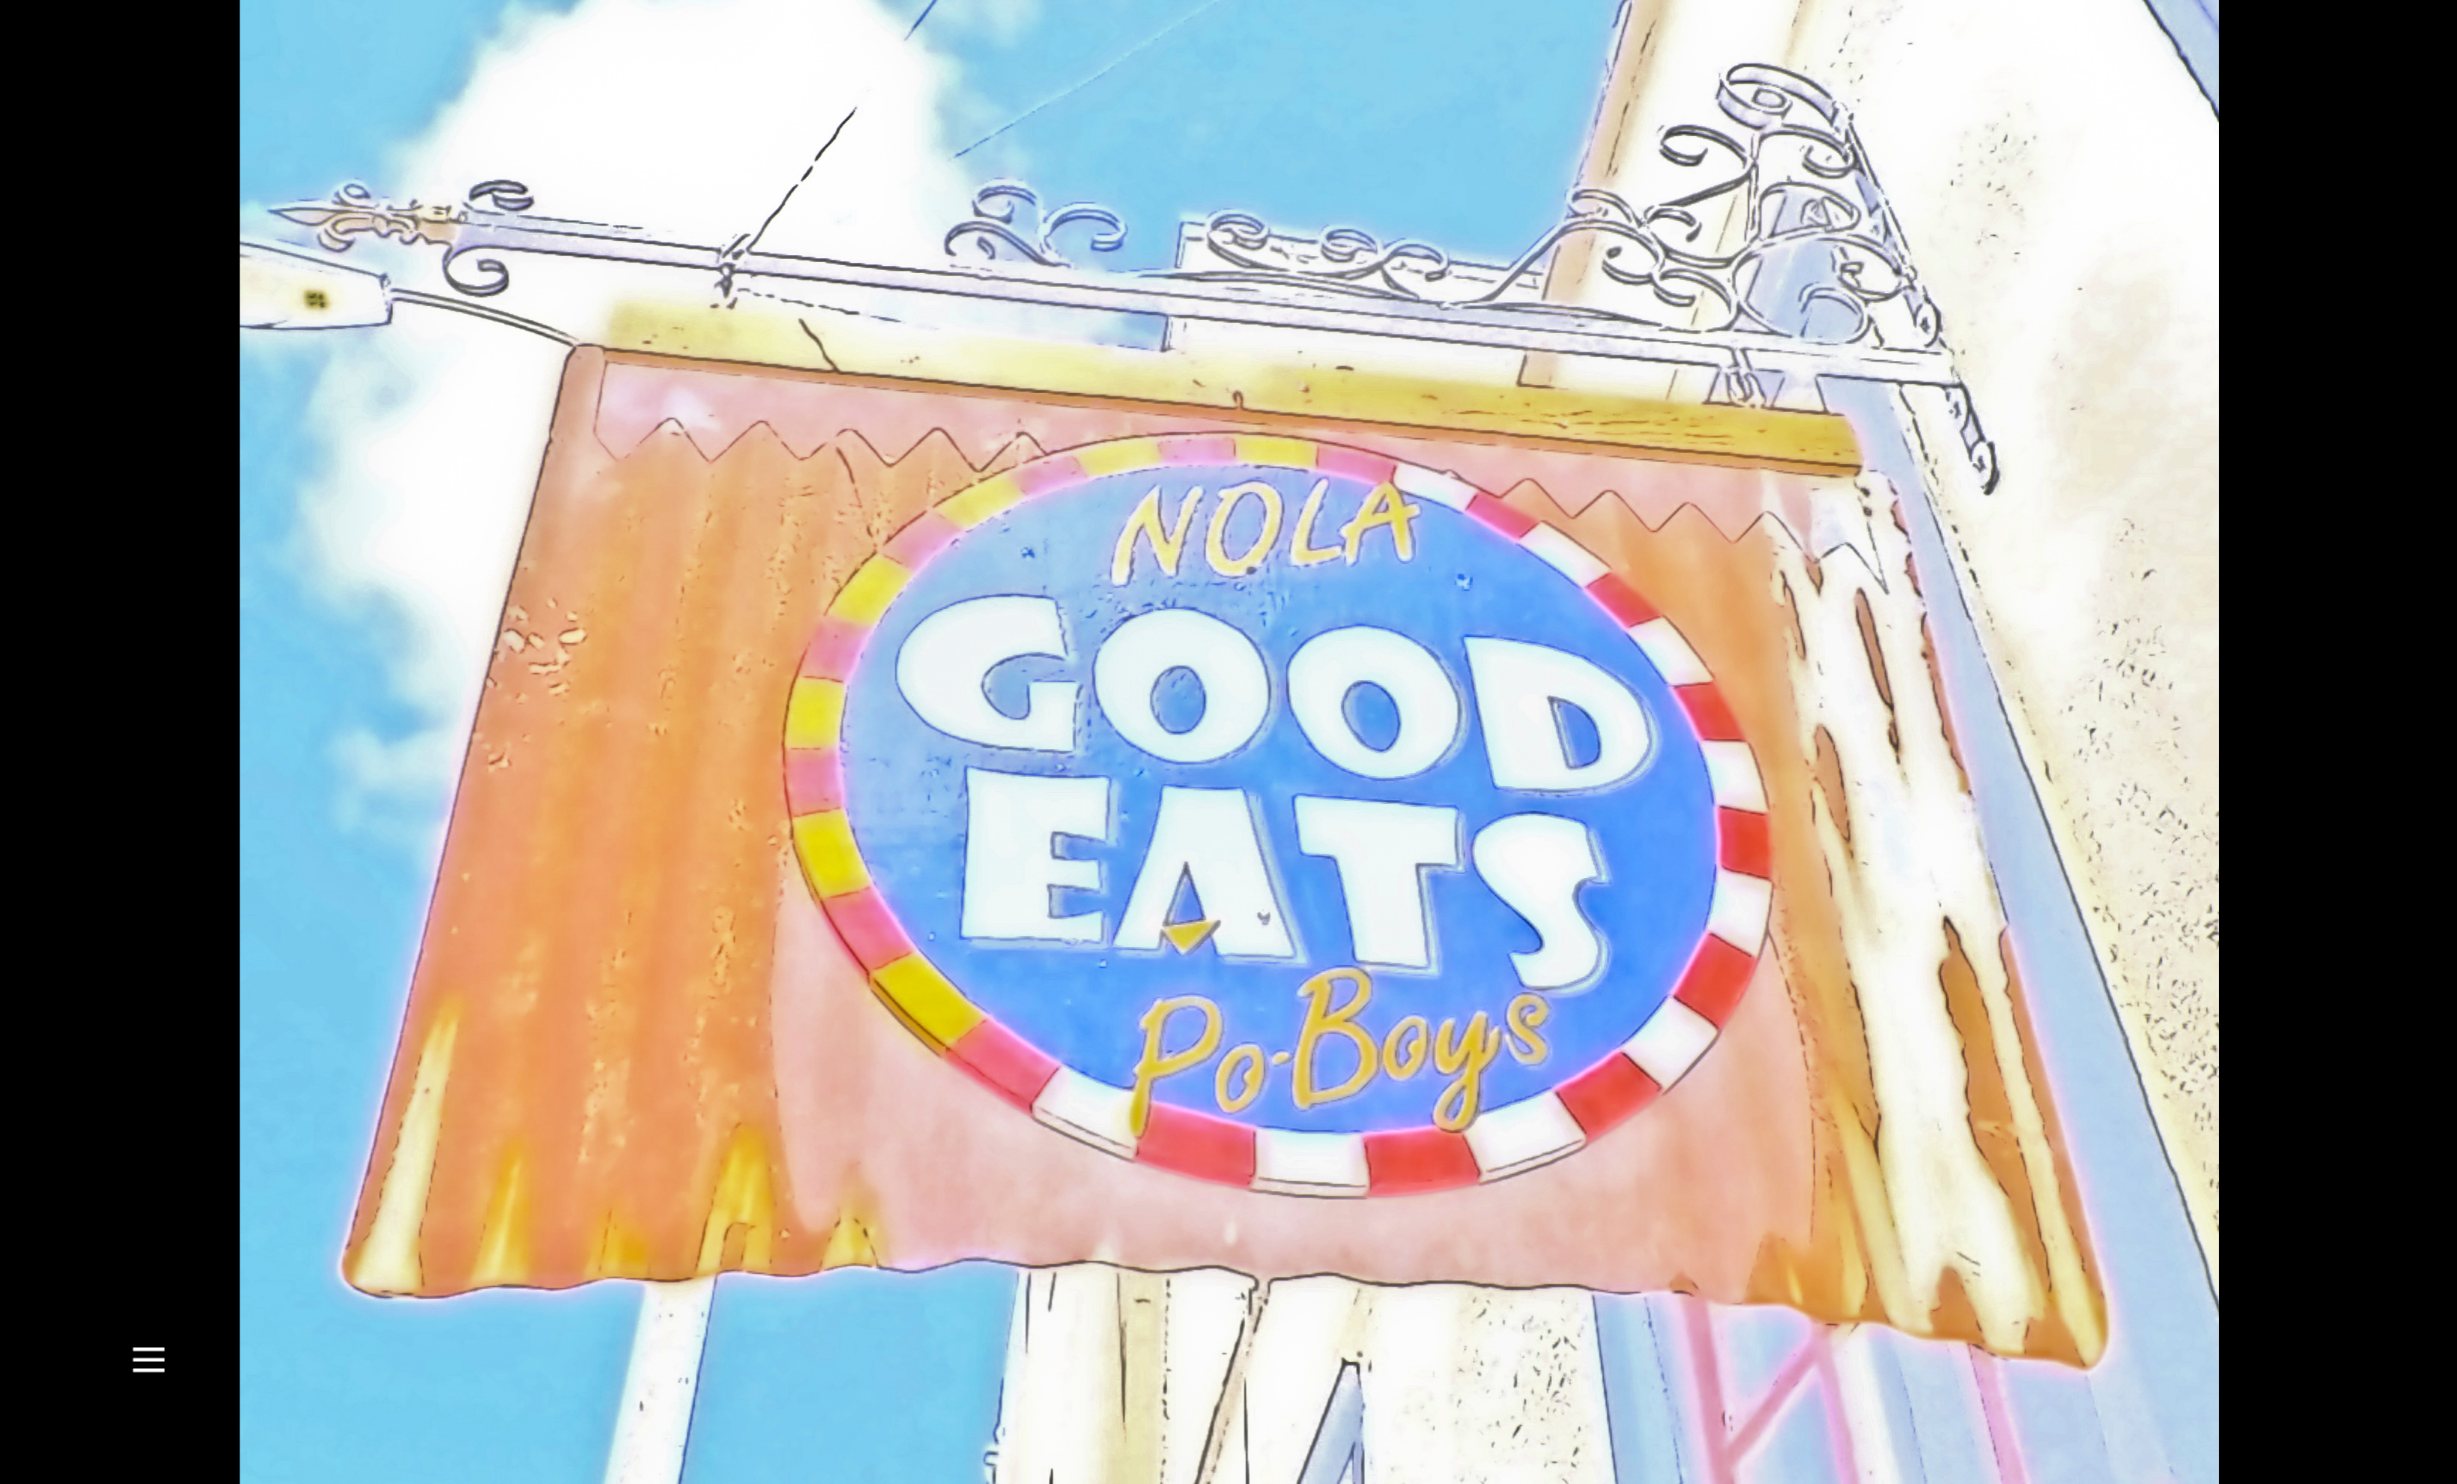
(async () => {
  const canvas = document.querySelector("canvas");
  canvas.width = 2457;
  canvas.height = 1484;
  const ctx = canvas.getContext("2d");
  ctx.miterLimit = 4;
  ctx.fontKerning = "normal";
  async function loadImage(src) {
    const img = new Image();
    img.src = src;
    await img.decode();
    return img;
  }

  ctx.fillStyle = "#000000";
  ctx.fillRect(0, 0, 2457, 1484);
  ctx.drawImage(await loadImage("img/1.png"), 132, 1347, 33, 26);
  ctx.drawImage(await loadImage("img/2.png"), 239, 0, 1980, 1484);
})();
